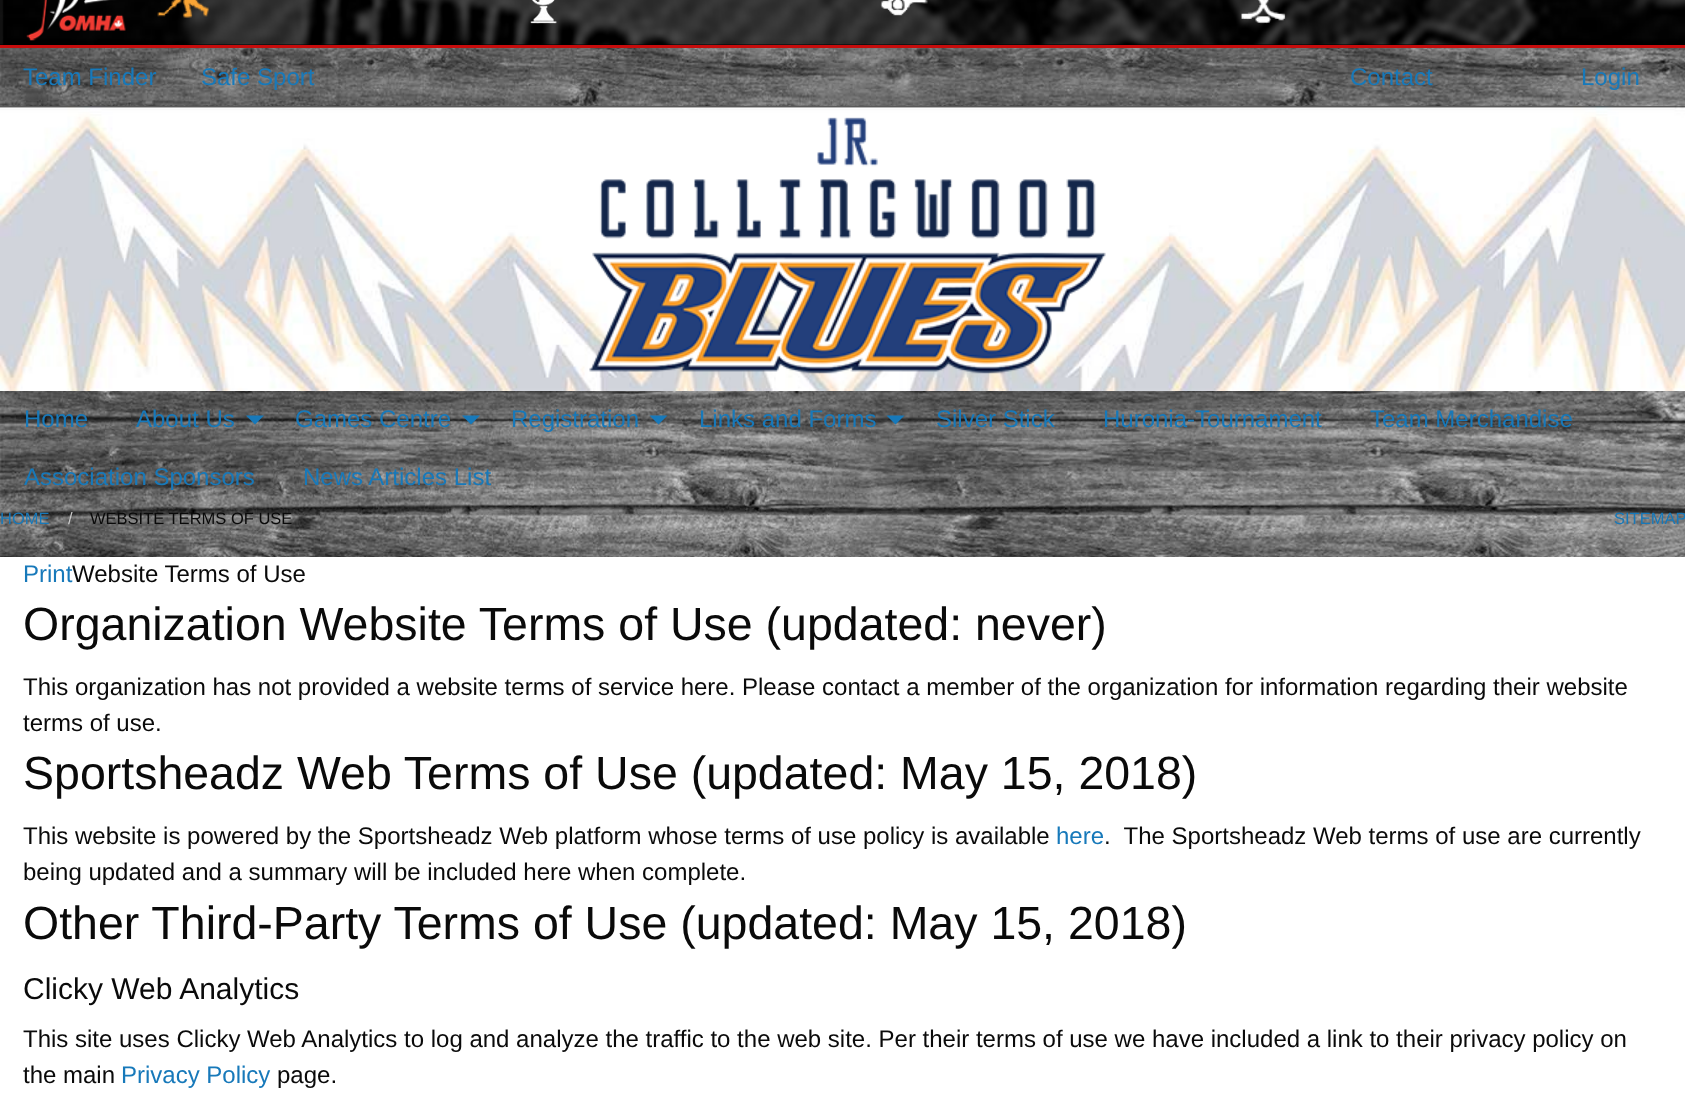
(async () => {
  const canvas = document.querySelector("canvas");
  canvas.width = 1685;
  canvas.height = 1103;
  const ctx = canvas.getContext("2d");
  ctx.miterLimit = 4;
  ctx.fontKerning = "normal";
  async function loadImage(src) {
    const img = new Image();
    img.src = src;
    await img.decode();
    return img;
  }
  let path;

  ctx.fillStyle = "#ffffff";
  ctx.fillRect(0, 0, 1685, 1103);
  ctx.fillStyle = "#000000";
  ctx.fillRect(0, 44, 1685, 1);
  ctx.fillStyle = "#c60c0c";
  ctx.fillRect(0, 45, 1685, 3);
  ctx.drawImage(await loadImage("img/1.png"), 0, 0, 1685, 45);
  ctx.drawImage(await loadImage("img/2.png"), 26, 0, 100, 41);
  ctx.drawImage(await loadImage("img/3.png"), 157, 0, 52, 18);
  ctx.drawImage(await loadImage("img/4.png"), 530, 0, 27, 24);
  ctx.drawImage(await loadImage("img/5.png"), 880, 0, 48, 16);
  ctx.drawImage(await loadImage("img/6.png"), 1241, 0, 45, 24);
  ctx.drawImage(await loadImage("img/7.png"), 0, 48, 1685, 509);
  ctx.drawImage(await loadImage("img/8.png"), 0, 106, 1685, 285);
  ctx.drawImage(await loadImage("img/9.png"), 589, 117, 517, 257);
  ctx.fillStyle = "#1779ba";
  path = new Path2D("M246 415.5H264L255 424.5Z");
  ctx.fill(path);
  path = new Path2D("M462 415.5H480L471 424.5Z");
  ctx.fill(path);
  path = new Path2D("M649.5 415.5H667.5L658.5 424.5Z");
  ctx.fill(path);
  path = new Path2D("M886.5 415.5H904.5L895.5 424.5Z");
  ctx.fill(path);
  ctx.font = "24px Liberation Sans";
  for (const [text, x, y] of [
    ["Team Finder", 23, 85],
    ["Safe Sport", 201, 85],
    ["Contact", 1350, 85],
    ["Login", 1581, 85],
    ["Home", 24, 427],
    ["About Us", 136, 427],
    ["Games Centre", 295, 427],
    ["Registration", 511, 427],
    ["Links and Forms", 699, 427],
    ["Silver Stick", 936, 427],
    ["Huronia-Tournament", 1103, 427],
    ["Team Merchandise", 1370, 427],
    ["Association Sponsors", 24, 485],
    ["News Articles List", 303, 485],
  ]) {
    ctx.fillText(text, x, y);
  }
  ctx.font = "16.5px Liberation Sans";
  ctx.fillText("HOME", 0, 524);
  ctx.fillStyle = "#cacaca";
  ctx.fillText("/", 68, 524);
  ctx.fillStyle = "#0a0a0a";
  ctx.fillText("WEBSITE TERMS OF USE", 90, 524);
  ctx.fillStyle = "#1779ba";
  ctx.fillText("SITEMAP", 1614, 524);
  ctx.font = "24px Liberation Sans";
  ctx.fillText("Print", 23, 582);
  ctx.fillStyle = "#0a0a0a";
  ctx.fillText("Website Terms of Use", 72, 582);
  ctx.font = "46.5px Liberation Sans";
  ctx.fillText("Organization Website Terms of Use (updated: never)", 23, 640);
  ctx.font = "24px Liberation Sans";
  ctx.fillText("This organization has not provided a website terms of service here. Please contact a member of the organization for information regarding their website", 23, 695);
  ctx.fillText("terms of use.", 23, 731);
  ctx.font = "46.5px Liberation Sans";
  ctx.fillText("Sportsheadz Web Terms of Use (updated: May 15, 2018)", 23, 789);
  ctx.font = "24px Liberation Sans";
  ctx.fillText("This website is powered by the Sportsheadz Web platform whose terms of use policy is available", 23, 844);
  ctx.fillStyle = "#1779ba";
  ctx.fillText("here", 1056, 844);
  ctx.fillStyle = "#0a0a0a";
  ctx.fillText(".  The Sportsheadz Web terms of use are currently", 1104, 844);
  ctx.fillText("being updated and a summary will be included here when complete.", 23, 880);
  ctx.font = "46.5px Liberation Sans";
  ctx.fillText("Other Third-Party Terms of Use (updated: May 15, 2018)", 23, 939);
  ctx.font = "30px Liberation Sans";
  ctx.fillText("Clicky Web Analytics", 23, 999);
  ctx.font = "24px Liberation Sans";
  ctx.fillText("This site uses Clicky Web Analytics to log and analyze the traffic to the web site. Per their terms of use we have included a link to their privacy policy on", 23, 1047);
  ctx.fillText("the main", 23, 1083);
  ctx.fillStyle = "#1779ba";
  ctx.fillText("Privacy Policy", 121, 1083);
  ctx.fillStyle = "#0a0a0a";
  ctx.fillText("page.", 277, 1083);
})();
